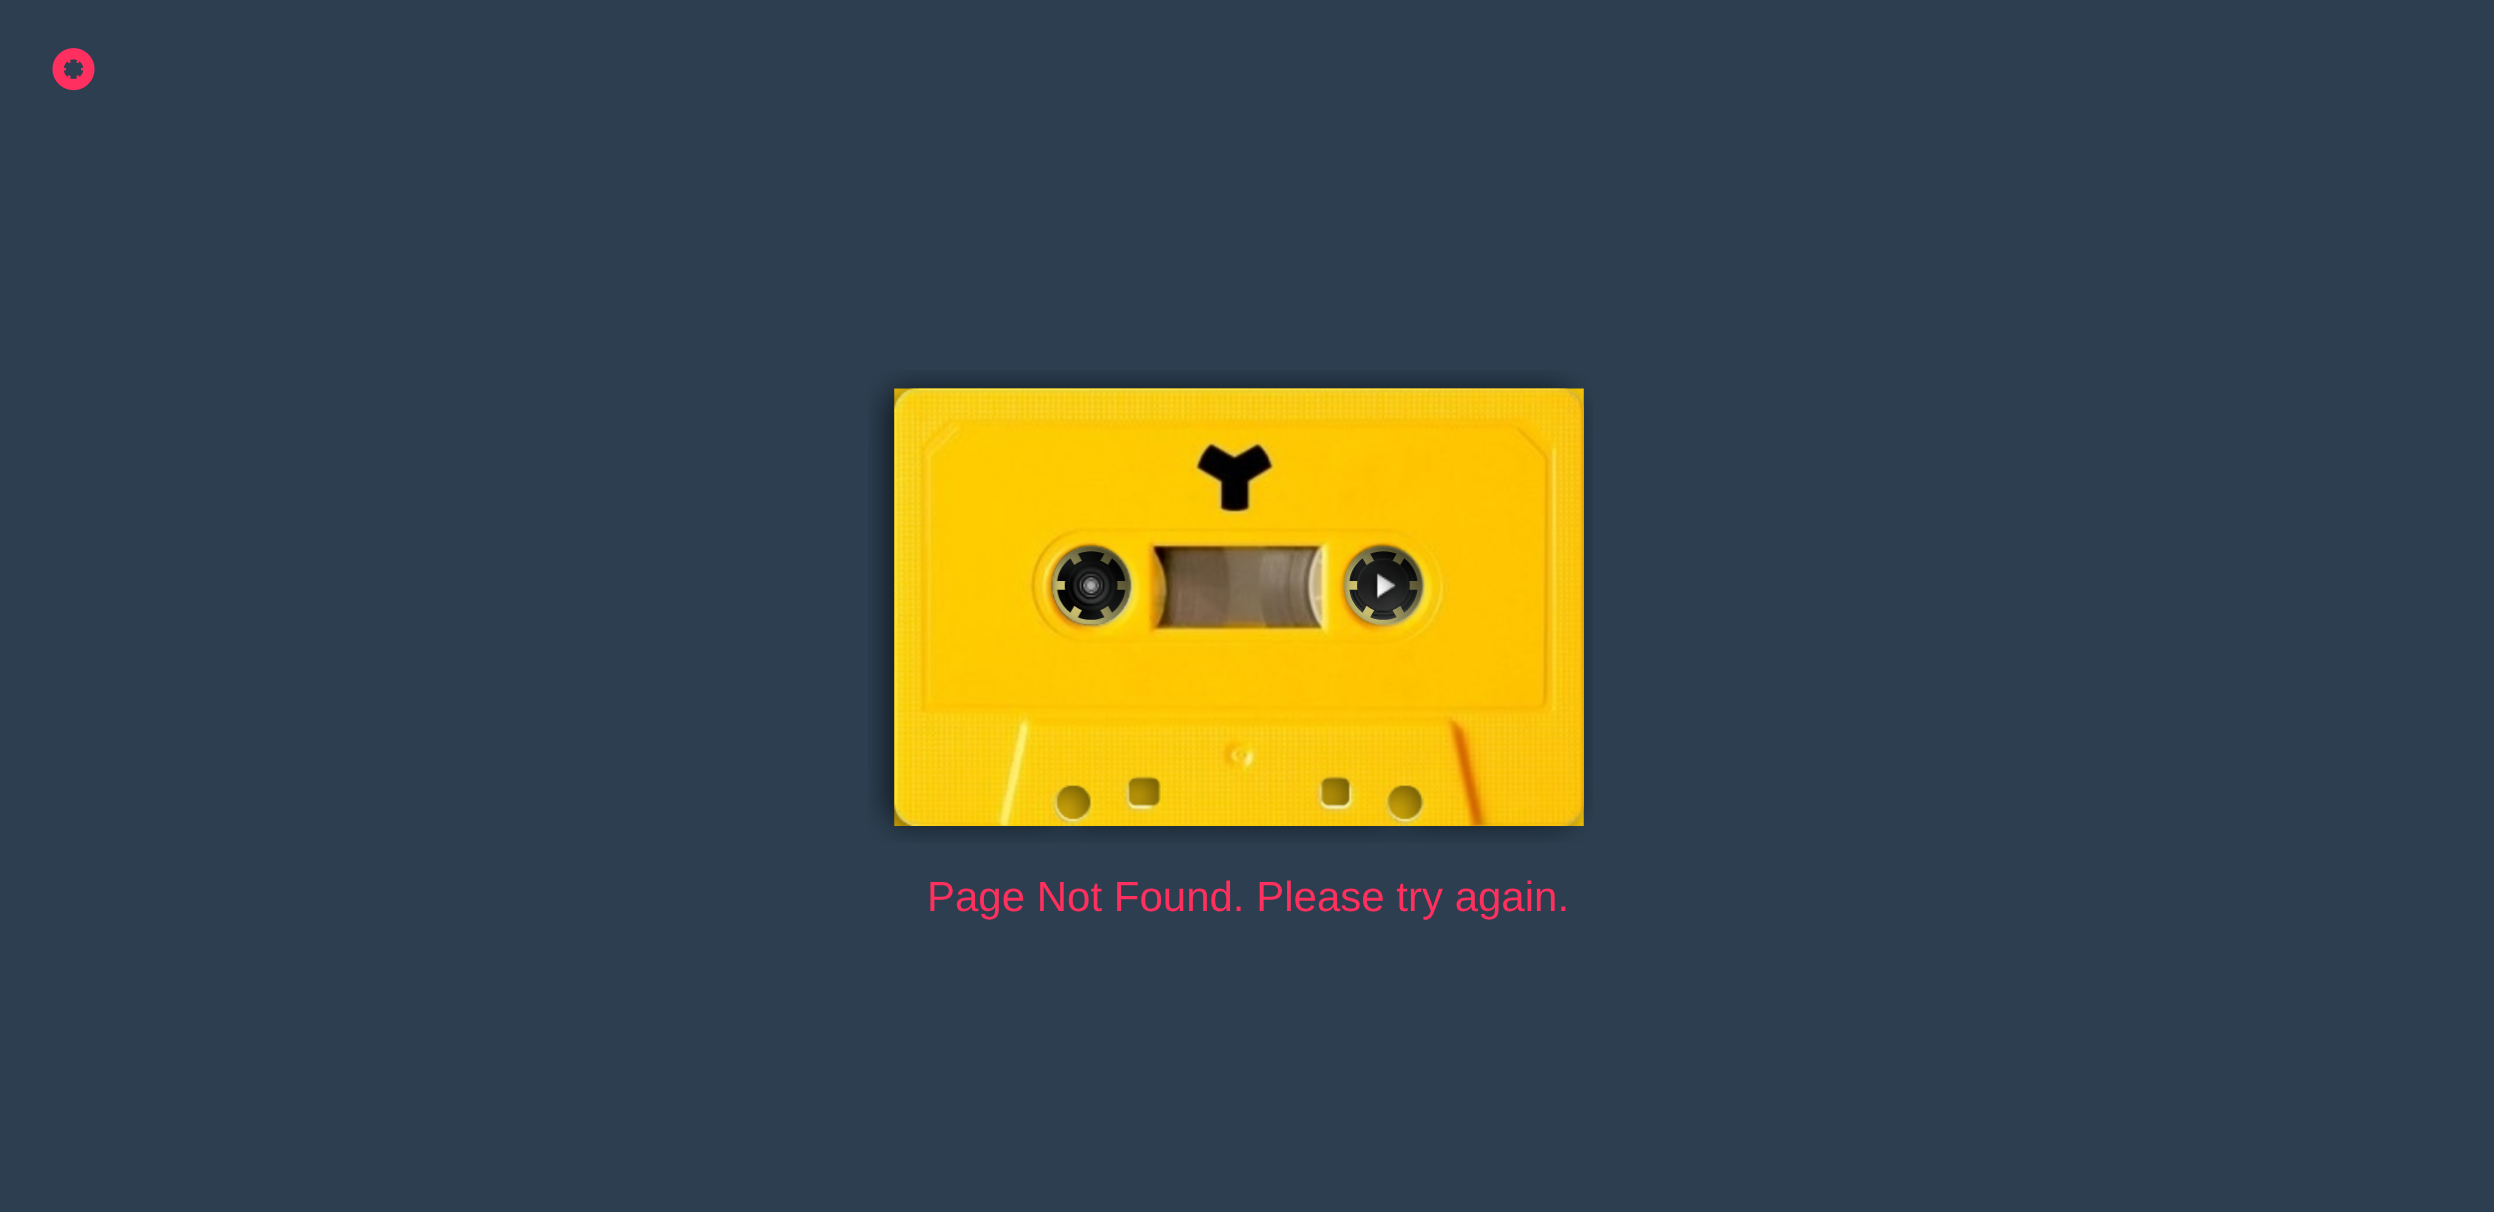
(async () => {
  const canvas = document.querySelector("canvas");
  canvas.width = 2494;
  canvas.height = 1212;
  const ctx = canvas.getContext("2d");
  ctx.miterLimit = 4;
  ctx.fontKerning = "normal";
  async function loadImage(src) {
    const img = new Image();
    img.src = src;
    await img.decode();
    return img;
  }

  ctx.fillStyle = "#2c3e50";
  ctx.fillRect(0, 0, 2494, 1212);
  ctx.drawImage(await loadImage("img/1.png"), 52, 48, 43, 43);
  ctx.drawImage(await loadImage("img/2.png"), 868, 370, 725, 473);
  ctx.drawImage(await loadImage("img/3.png"), 894, 388, 690, 438);
  ctx.font = "42px Liberation Sans";
  ctx.fillStyle = "#ff305e";
  ctx.fillText("Page Not Found. Please try again.", 927, 911);
})();
